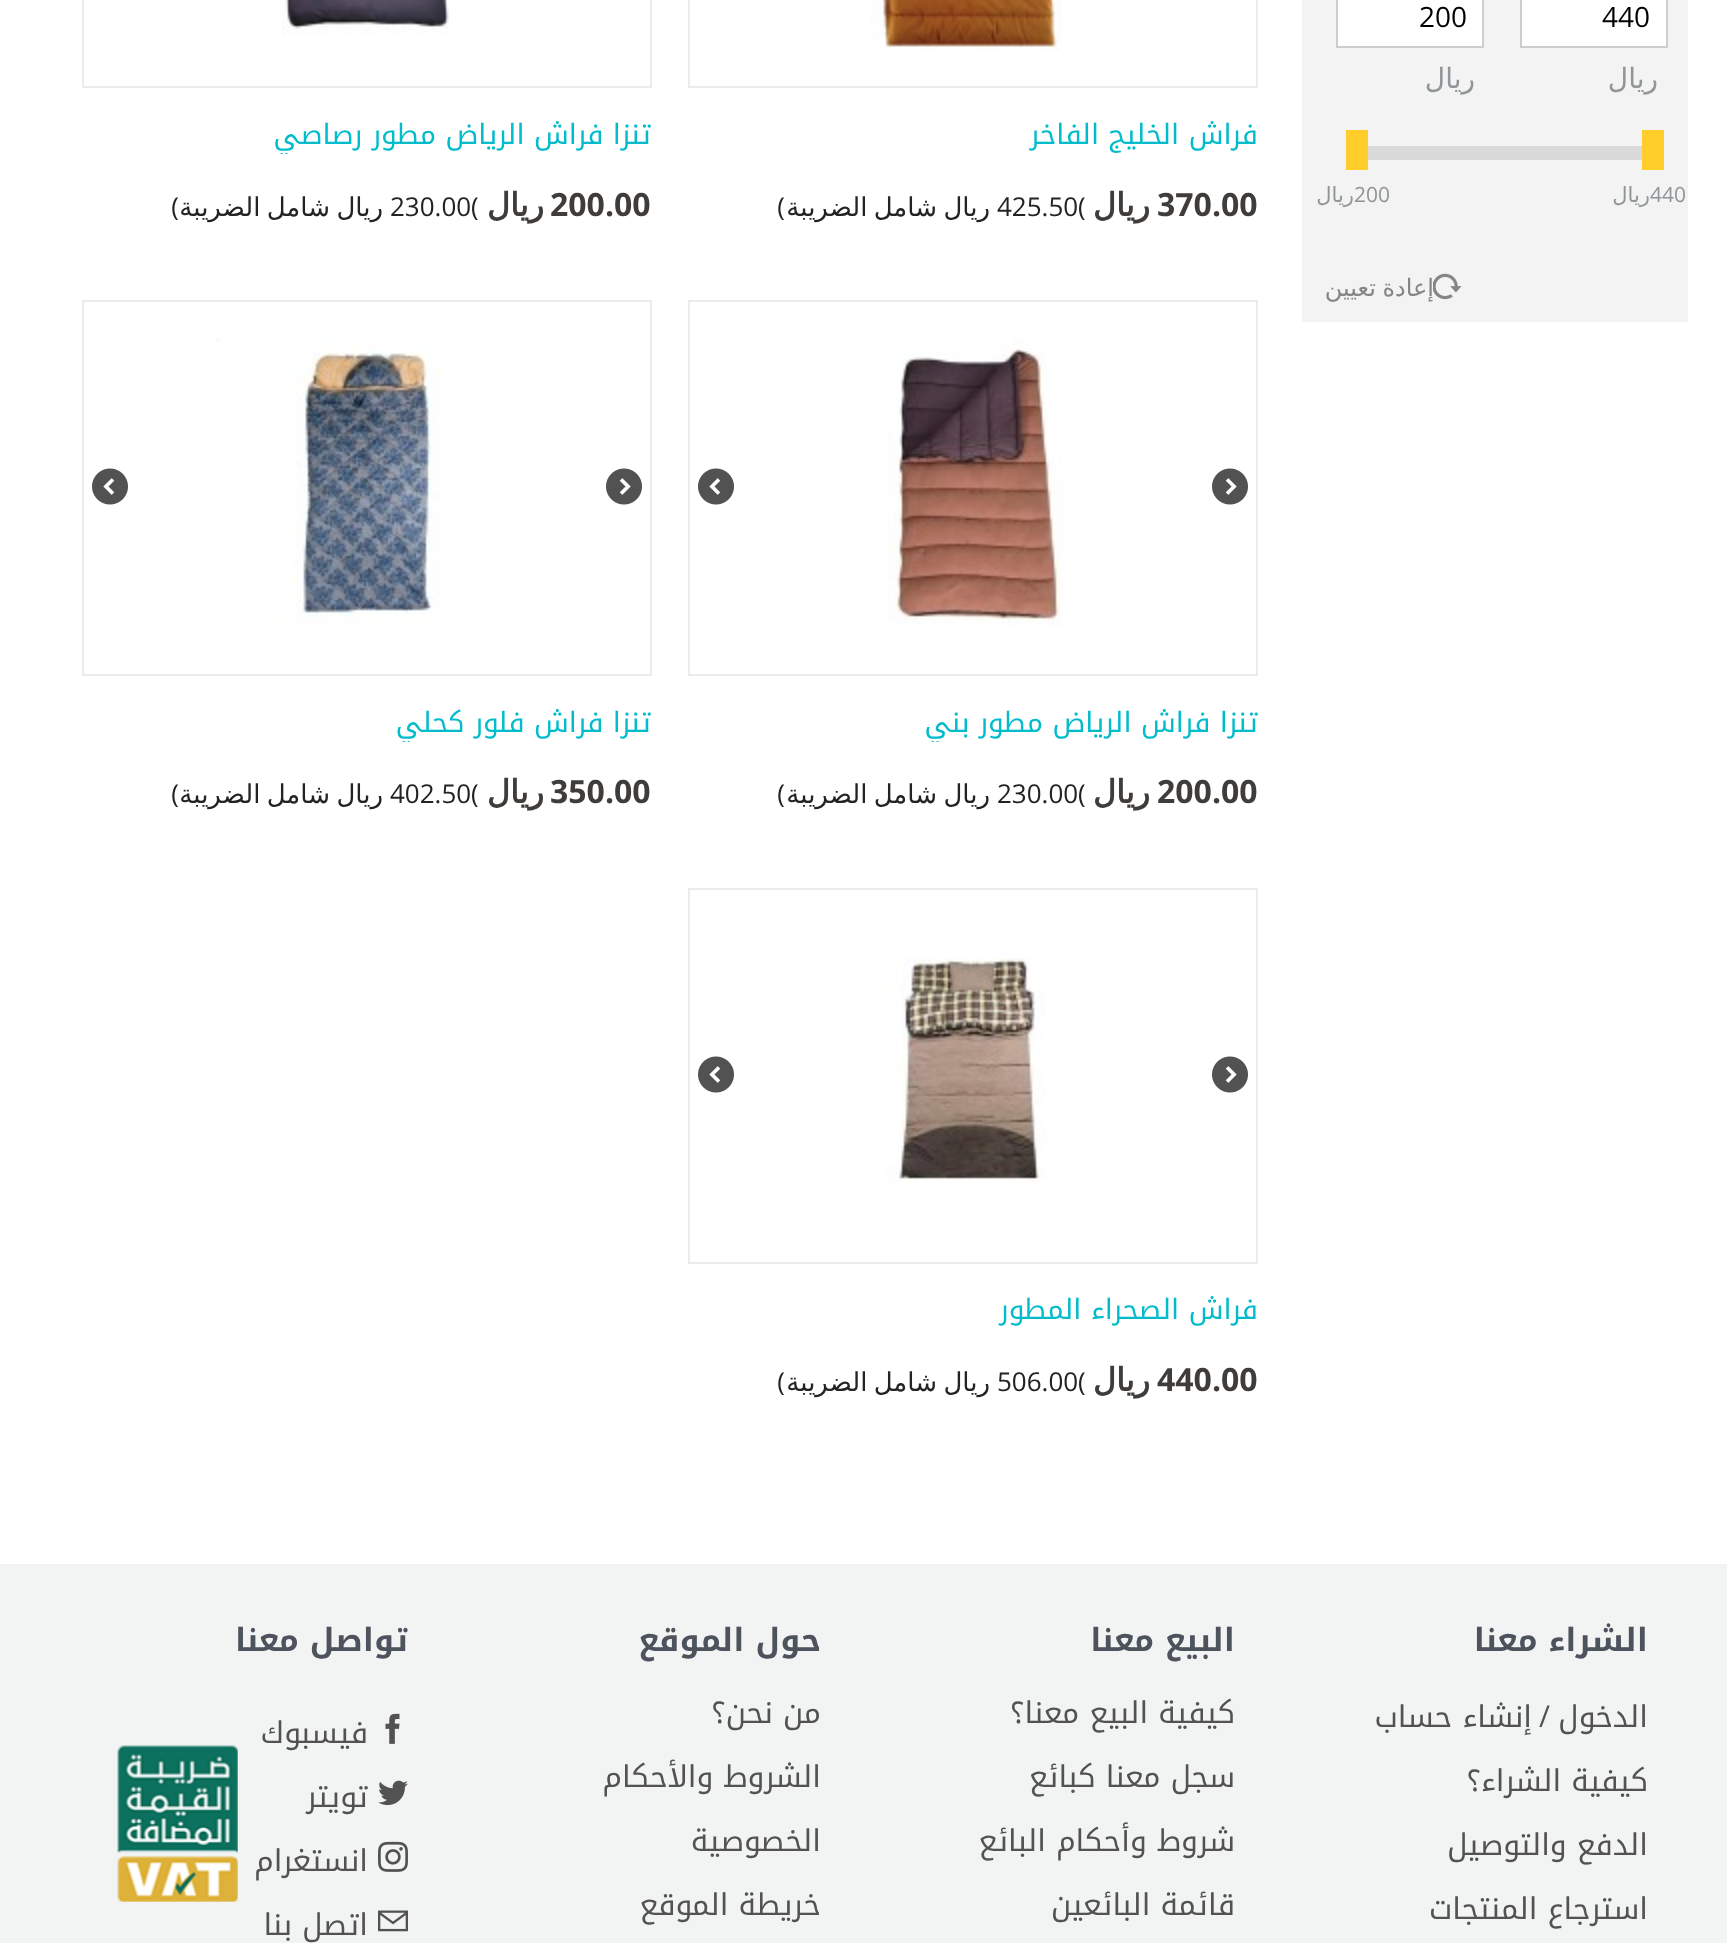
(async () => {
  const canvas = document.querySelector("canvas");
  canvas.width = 1727;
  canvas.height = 1943;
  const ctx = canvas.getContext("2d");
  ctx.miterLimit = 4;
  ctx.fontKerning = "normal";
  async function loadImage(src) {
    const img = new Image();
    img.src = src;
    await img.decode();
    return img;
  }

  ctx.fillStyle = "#ffffff";
  ctx.fillRect(0, 0, 1727, 1943);
  ctx.fillStyle = "#f3f3f3";
  ctx.fillRect(1302, 0, 386, 322);
  ctx.fillStyle = "#ffffff";
  ctx.beginPath();
  ctx.rect(1521, -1, 146, 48);
  ctx.fill();
  ctx.strokeStyle = "#cdcdcd";
  ctx.lineWidth = 2;
  ctx.stroke();
  ctx.beginPath();
  ctx.rect(1337, -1, 146, 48);
  ctx.fill();
  ctx.stroke();
  for (const [x, y, w, h, color] of [
    [1642, 130, 22, 40, "#ffce2b"],
    [1368, 146, 274, 14, "#dadada"],
    [1346, 130, 22, 40, "#ffce2b"],
  ]) {
    ctx.fillStyle = color;
    ctx.fillRect(x, y, w, h);
  }
  ctx.strokeStyle = "#ebebeb";
  ctx.strokeRect(689, -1, 568, 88);
  ctx.drawImage(await loadImage("img/2.png"), 870, 0, 192, 50);
  ctx.strokeRect(83, -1, 568, 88);
  ctx.drawImage(await loadImage("img/3.png"), 282, 0, 167, 36);
  ctx.strokeRect(689, 301, 568, 374);
  ctx.drawImage(await loadImage("img/4.png"), 887, 338, 183, 288);
  ctx.drawImage(await loadImage("img/5.png"), 1212, 468, 36, 37);
  ctx.drawImage(await loadImage("img/6.png"), 698, 468, 36, 37);
  ctx.strokeRect(83, 301, 568, 374);
  ctx.drawImage(await loadImage("img/7.png"), 216, 338, 225, 287);
  ctx.drawImage(await loadImage("img/5.png"), 606, 468, 36, 37);
  ctx.drawImage(await loadImage("img/6.png"), 92, 468, 36, 37);
  ctx.strokeRect(689, 889, 568, 374);
  ctx.drawImage(await loadImage("img/8.png"), 886, 957, 160, 225);
  ctx.drawImage(await loadImage("img/5.png"), 1212, 1056, 36, 37);
  ctx.drawImage(await loadImage("img/6.png"), 698, 1056, 36, 37);
  ctx.fillStyle = "#f2f3f3";
  ctx.fillRect(0, 1564, 1727, 379);
  ctx.drawImage(await loadImage("img/9.png"), 385, 1713, 15, 31);
  ctx.drawImage(await loadImage("img/10.png"), 378, 1780, 30, 26);
  ctx.drawImage(await loadImage("img/11.png"), 378, 1841, 30, 31);
  ctx.drawImage(await loadImage("img/12.png"), 378, 1910, 30, 22);
  ctx.drawImage(await loadImage("img/13.png"), 117, 1745, 121, 157);
  ctx.font = "28px Open Sans";
  ctx.fillStyle = "#000000";
  ctx.fillText("440", 1602, 27);
  ctx.direction = "rtl";
  ctx.font = "28px DejaVu Sans";
  ctx.fillStyle = "#909598";
  ctx.fillText("ريال", 1658, 88);
  ctx.direction = "ltr";
  ctx.font = "28px Open Sans";
  ctx.fillStyle = "#000000";
  ctx.fillText("200", 1419, 27);
  ctx.direction = "rtl";
  ctx.font = "28px DejaVu Sans";
  ctx.fillStyle = "#909598";
  ctx.fillText("ريال", 1475, 88);
  ctx.direction = "ltr";
  ctx.font = "21px Open Sans";
  ctx.fillText("440", 1650, 202);
  ctx.direction = "rtl";
  ctx.font = "21px DejaVu Sans";
  ctx.fillText("ريال", 1650, 202);
  ctx.direction = "ltr";
  ctx.font = "21px Open Sans";
  ctx.fillText("200", 1354, 202);
  ctx.direction = "rtl";
  ctx.font = "21px DejaVu Sans";
  ctx.fillText("ريال", 1354, 202);
  ctx.wordSpacing = "-1px";
  ctx.font = "24px DejaVu Sans";
  ctx.fillStyle = "#858585";
  ctx.fillText("إعادة تعيين", 1434, 296);
  ctx.drawImage(await loadImage("img/1.png"), 1433, 273, 29, 27);
  ctx.wordSpacing = "0px";
  ctx.font = "28px Noto Kufi Arabic";
  ctx.fillStyle = "#02bccb";
  ctx.fillText("فراش الخليج الفاخر", 1258, 144);
  ctx.direction = "ltr";
  ctx.font = "bold 32px Open Sans";
  ctx.fillStyle = "#3f3c39";
  ctx.fillText("370.00", 1157, 216);
  ctx.direction = "rtl";
  ctx.font = "bold 32px DejaVu Sans";
  ctx.fillText("ريال", 1150, 216);
  ctx.direction = "ltr";
  ctx.font = "26px Open Sans";
  ctx.fillStyle = "#242321";
  ctx.fillText("(", 1078, 216);
  ctx.fillText("425.50", 997, 216);
  ctx.direction = "rtl";
  ctx.font = "26px DejaVu Sans";
  ctx.fillText("ريال", 990, 216);
  ctx.wordSpacing = "-2px";
  ctx.fillText("شامل الضريبة", 937, 216);
  ctx.wordSpacing = "0px";
  ctx.font = "26px Open Sans";
  ctx.fillText(")", 785, 216);
  ctx.save();
  ctx.beginPath();
  ctx.rect(82, 120, 570, 34);
  ctx.clip();
  ctx.font = "28px Noto Kufi Arabic";
  ctx.fillStyle = "#02bccb";
  ctx.fillText("تنزا فراش الرياض مطور رصاصي", 651, 144);
  ctx.restore();
  ctx.direction = "ltr";
  ctx.font = "bold 32px Open Sans";
  ctx.fillStyle = "#3f3c39";
  ctx.fillText("200.00", 550, 216);
  ctx.direction = "rtl";
  ctx.font = "bold 32px DejaVu Sans";
  ctx.fillText("ريال", 544, 216);
  ctx.direction = "ltr";
  ctx.font = "26px Open Sans";
  ctx.fillStyle = "#242321";
  ctx.fillText("(", 471, 216);
  ctx.fillText("230.00", 390, 216);
  ctx.direction = "rtl";
  ctx.font = "26px DejaVu Sans";
  ctx.fillText("ريال", 383, 216);
  ctx.wordSpacing = "-2px";
  ctx.fillText("شامل الضريبة", 330, 216);
  ctx.wordSpacing = "0px";
  ctx.font = "26px Open Sans";
  ctx.fillText(")", 179, 216);
  ctx.save();
  ctx.beginPath();
  ctx.rect(688, 708, 570, 34);
  ctx.clip();
  ctx.font = "28px Noto Kufi Arabic";
  ctx.fillStyle = "#02bccb";
  ctx.fillText("تنزا فراش الرياض مطور بني", 1258, 732);
  ctx.restore();
  ctx.direction = "ltr";
  ctx.font = "bold 32px Open Sans";
  ctx.fillStyle = "#3f3c39";
  ctx.fillText("200.00", 1157, 803);
  ctx.direction = "rtl";
  ctx.font = "bold 32px DejaVu Sans";
  ctx.fillText("ريال", 1150, 803);
  ctx.direction = "ltr";
  ctx.font = "26px Open Sans";
  ctx.fillStyle = "#242321";
  ctx.fillText("(", 1078, 803);
  ctx.fillText("230.00", 997, 803);
  ctx.direction = "rtl";
  ctx.font = "26px DejaVu Sans";
  ctx.fillText("ريال", 990, 803);
  ctx.wordSpacing = "-2px";
  ctx.fillText("شامل الضريبة", 937, 803);
  ctx.wordSpacing = "0px";
  ctx.font = "26px Open Sans";
  ctx.fillText(")", 785, 803);
  ctx.save();
  ctx.beginPath();
  ctx.rect(82, 708, 570, 34);
  ctx.clip();
  ctx.font = "28px Noto Kufi Arabic";
  ctx.fillStyle = "#02bccb";
  ctx.fillText("تنزا فراش فلور كحلي", 651, 732);
  ctx.restore();
  ctx.direction = "ltr";
  ctx.font = "bold 32px Open Sans";
  ctx.fillStyle = "#3f3c39";
  ctx.fillText("350.00", 550, 803);
  ctx.direction = "rtl";
  ctx.font = "bold 32px DejaVu Sans";
  ctx.fillText("ريال", 544, 803);
  ctx.direction = "ltr";
  ctx.font = "26px Open Sans";
  ctx.fillStyle = "#242321";
  ctx.fillText("(", 471, 803);
  ctx.fillText("402.50", 390, 803);
  ctx.direction = "rtl";
  ctx.font = "26px DejaVu Sans";
  ctx.fillText("ريال", 383, 803);
  ctx.wordSpacing = "-2px";
  ctx.fillText("شامل الضريبة", 330, 803);
  ctx.wordSpacing = "0px";
  ctx.font = "26px Open Sans";
  ctx.fillText(")", 179, 803);
  ctx.font = "28px Noto Kufi Arabic";
  ctx.fillStyle = "#02bccb";
  ctx.fillText("فراش الصحراء المطور", 1258, 1319);
  ctx.direction = "ltr";
  ctx.font = "bold 32px Open Sans";
  ctx.fillStyle = "#3f3c39";
  ctx.fillText("440.00", 1157, 1391);
  ctx.direction = "rtl";
  ctx.font = "bold 32px DejaVu Sans";
  ctx.fillText("ريال", 1150, 1391);
  ctx.direction = "ltr";
  ctx.font = "26px Open Sans";
  ctx.fillStyle = "#242321";
  ctx.fillText("(", 1078, 1391);
  ctx.fillText("506.00", 997, 1391);
  ctx.direction = "rtl";
  ctx.font = "26px DejaVu Sans";
  ctx.fillText("ريال", 990, 1391);
  ctx.wordSpacing = "-2px";
  ctx.fillText("شامل الضريبة", 937, 1391);
  ctx.wordSpacing = "0px";
  ctx.font = "26px Open Sans";
  ctx.fillText(")", 785, 1391);
  ctx.font = "bold 32px Noto Kufi Arabic";
  ctx.fillStyle = "#4c535d";
  ctx.fillText("الشراء معنا", 1648, 1651);
  ctx.font = "30px Noto Kufi Arabic";
  ctx.fillStyle = "#525252";
  ctx.fillText("الدخول", 1648, 1727);
  ctx.direction = "ltr";
  ctx.font = "30px Open Sans";
  ctx.fillText("/", 1539, 1727);
  ctx.direction = "rtl";
  ctx.font = "30px Noto Kufi Arabic";
  for (const [text, x, y] of [
    ["إنشاء حساب", 1532, 1727],
    ["كيفية الشراء؟", 1648, 1791],
    ["الدفع والتوصيل", 1648, 1855],
    ["استرجاع المنتجات", 1648, 1919],
  ]) {
    ctx.fillText(text, x, y);
  }
  ctx.font = "bold 32px Noto Kufi Arabic";
  ctx.fillStyle = "#4c535d";
  ctx.fillText("البيع معنا", 1235, 1651);
  ctx.font = "30px Noto Kufi Arabic";
  ctx.fillStyle = "#525252";
  for (const [text, x, y] of [
    ["كيفية البيع معنا؟", 1235, 1723],
    ["سجل معنا كبائع", 1235, 1787],
    ["شروط وأحكام البائع", 1235, 1851],
    ["قائمة البائعين", 1235, 1915],
  ]) {
    ctx.fillText(text, x, y);
  }
  ctx.font = "bold 32px Noto Kufi Arabic";
  ctx.fillStyle = "#4c535d";
  ctx.fillText("حول الموقع", 821, 1651);
  ctx.font = "30px Noto Kufi Arabic";
  ctx.fillStyle = "#525252";
  for (const [text, x, y] of [
    ["من نحن؟", 821, 1723],
    ["الشروط والأحكام", 821, 1787],
    ["الخصوصية", 821, 1851],
    ["خريطة الموقع", 821, 1915],
  ]) {
    ctx.fillText(text, x, y);
  }
  ctx.font = "bold 32px Noto Kufi Arabic";
  ctx.fillStyle = "#4c535d";
  ctx.fillText("تواصل معنا", 408, 1651);
  ctx.font = "30px Noto Kufi Arabic";
  ctx.fillStyle = "#525252";
  for (const [text, x, y] of [
    ["فيسبوك", 368, 1743],
    ["تويتر", 368, 1807],
    ["انستغرام", 368, 1871],
    ["اتصل بنا", 368, 1935],
  ]) {
    ctx.fillText(text, x, y);
  }
})();
